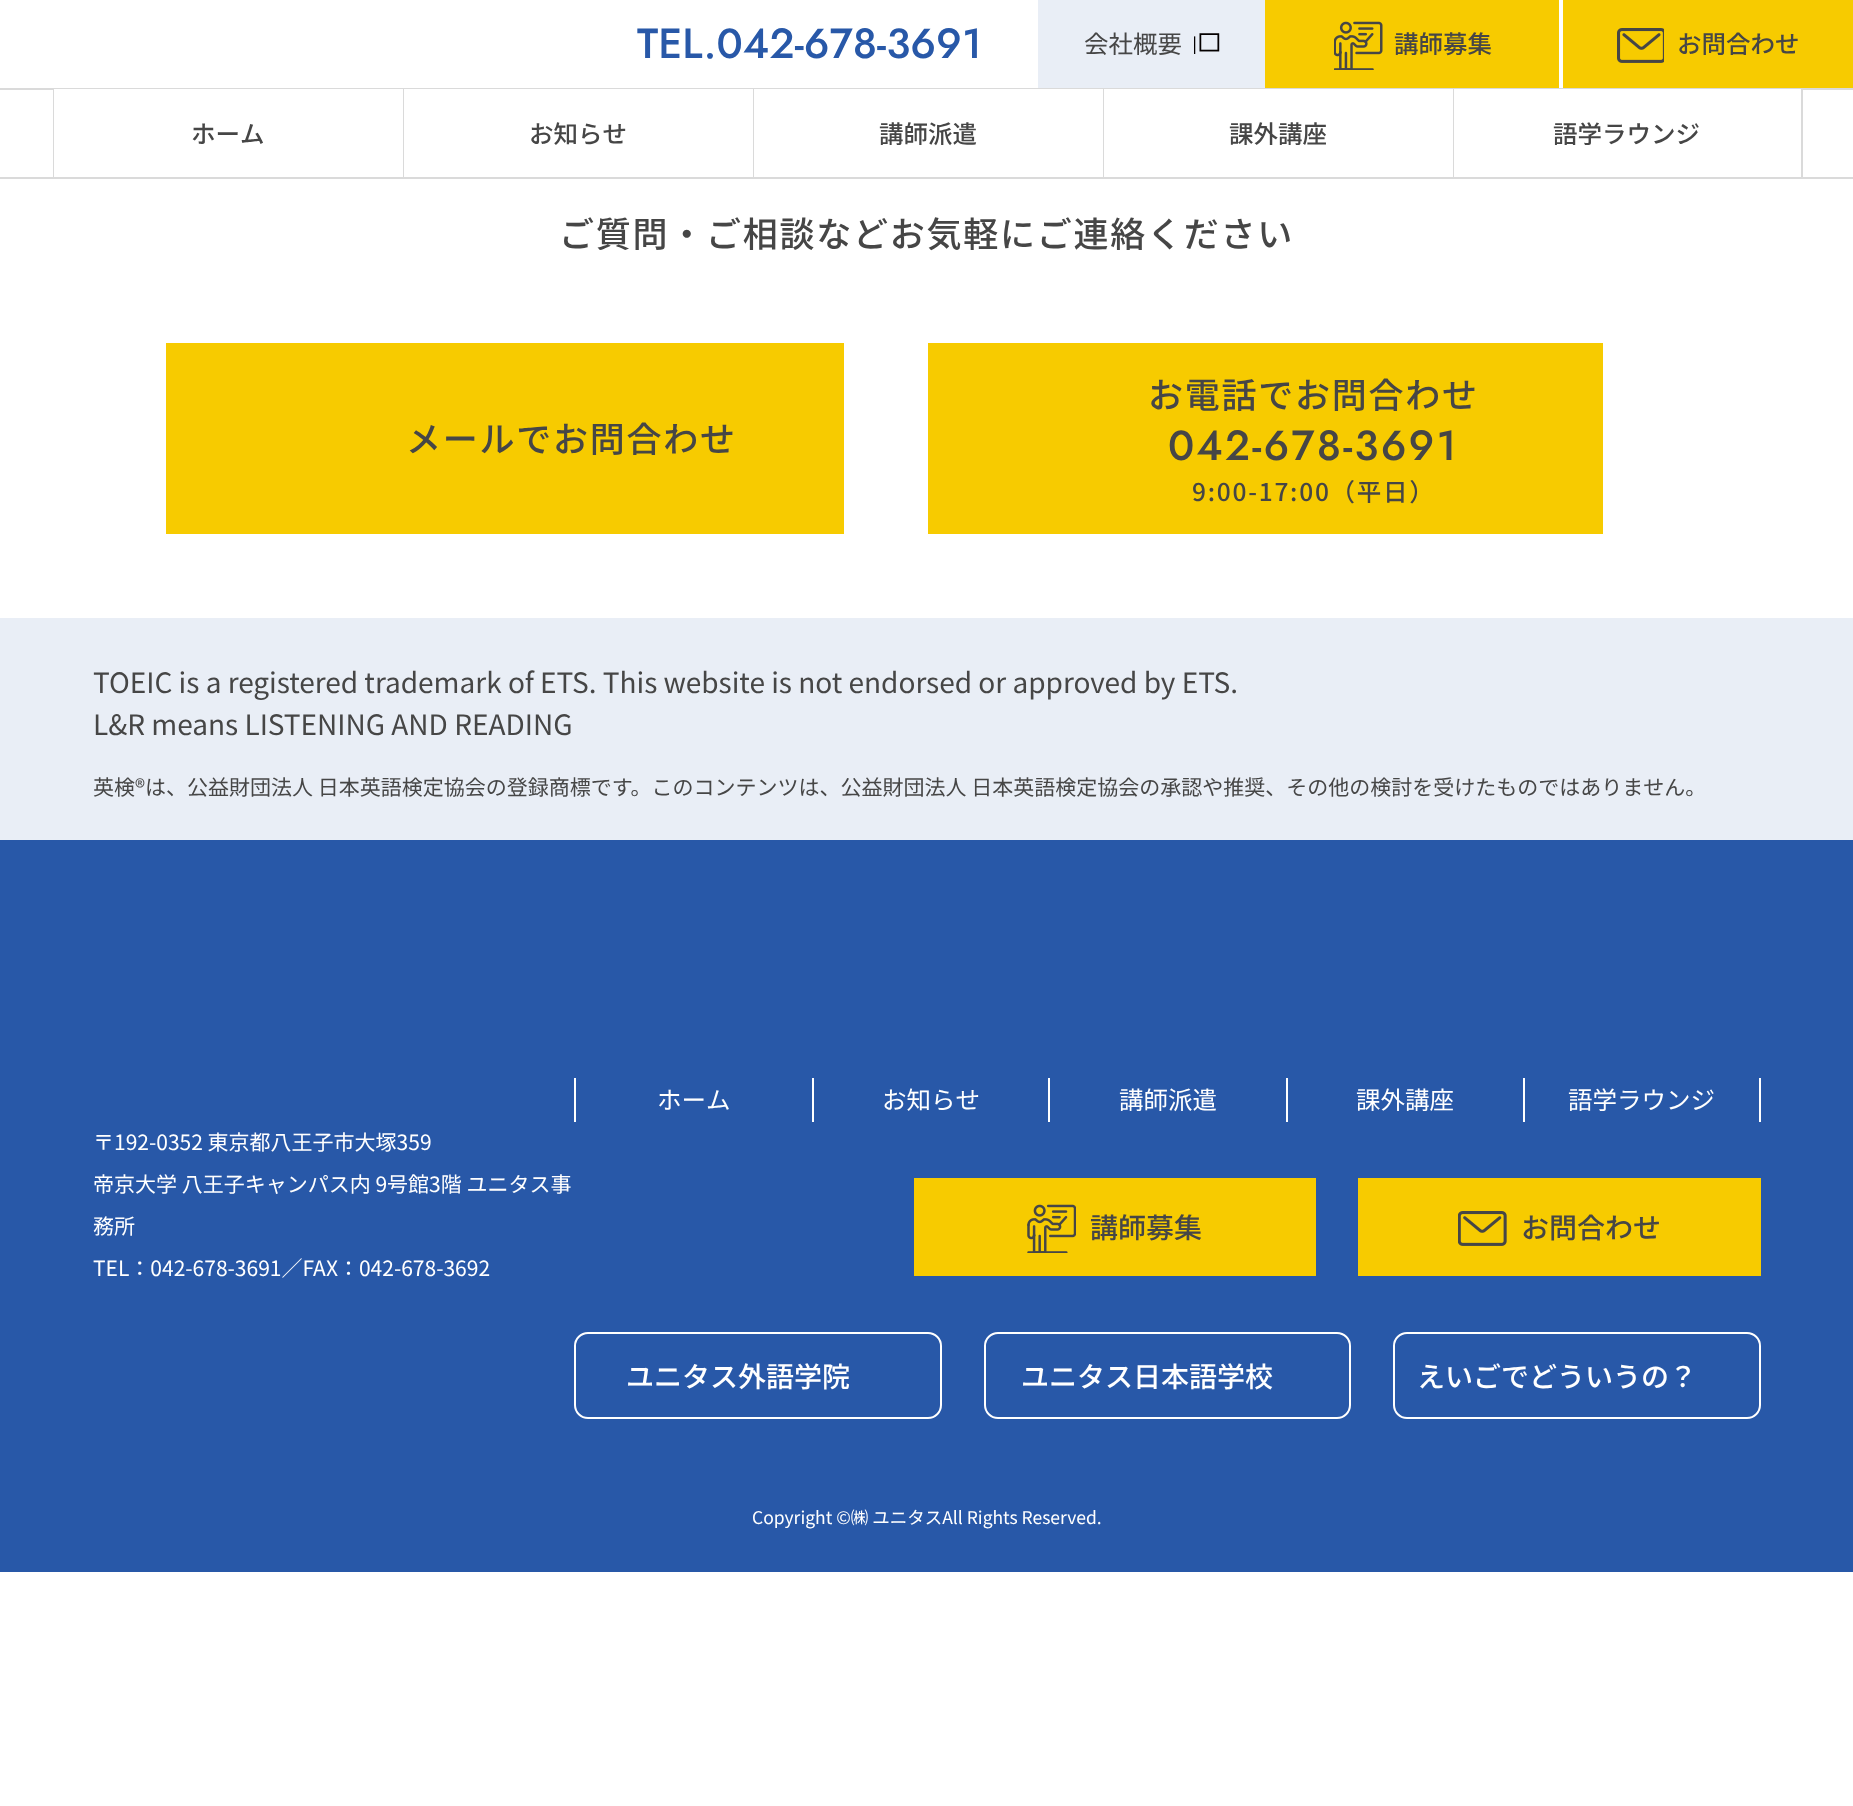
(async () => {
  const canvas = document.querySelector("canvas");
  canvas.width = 1853;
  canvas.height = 1806;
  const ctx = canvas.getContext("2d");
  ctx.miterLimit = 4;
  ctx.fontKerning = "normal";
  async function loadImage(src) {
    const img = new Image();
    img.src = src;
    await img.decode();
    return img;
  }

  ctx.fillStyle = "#ffffff";
  ctx.fillRect(0, 0, 1853, 1806);
  ctx.fillStyle = "#e9eef6";
  ctx.fillRect(1038, 0, 227, 88);
  ctx.drawImage(await loadImage("img/1.png"), 1194, 33, 26, 21);
  ctx.fillStyle = "#f7cb00";
  ctx.fillRect(1265, 0, 294, 88);
  ctx.drawImage(await loadImage("img/2.png"), 1334, 21, 49, 49);
  ctx.fillRect(1563, 0, 290, 88);
  ctx.drawImage(await loadImage("img/3.png"), 1617, 28, 47, 35);
  for (const [x, y, w, h, color] of [
    [0, 88, 1853, 2, "#dadada"],
    [0, 177, 1853, 2, "#dadada"],
    [53, 89, 1, 88, "#dadada"],
    [54, 89, 349, 1, "#ffffff"],
    [403, 89, 1, 88, "#dadada"],
    [404, 89, 349, 1, "#ffffff"],
    [753, 89, 1, 88, "#dadada"],
    [754, 89, 349, 1, "#ffffff"],
    [1103, 89, 1, 88, "#dadada"],
    [1104, 89, 349, 1, "#ffffff"],
    [1801, 89, 2, 88, "#dadada"],
    [1453, 89, 1, 88, "#dadada"],
    [1454, 89, 347, 1, "#ffffff"],
    [0, 840, 1853, 732, "#2858a8"],
    [166, 343, 678, 191, "#f7cb00"],
    [928, 343, 675, 191, "#f7cb00"],
    [0, 618, 1853, 222, "#e9eef6"],
    [574, 1078, 2, 44, "#ffffff"],
    [812, 1078, 2, 44, "#ffffff"],
    [1048, 1078, 2, 44, "#ffffff"],
    [1286, 1078, 2, 44, "#ffffff"],
    [1759, 1078, 2, 44, "#ffffff"],
    [1523, 1078, 2, 44, "#ffffff"],
    [914, 1178, 402, 98, "#f7cb00"],
  ]) {
    ctx.fillStyle = color;
    ctx.fillRect(x, y, w, h);
  }
  ctx.drawImage(await loadImage("img/4.png"), 1027, 1204, 49, 49);
  ctx.fillRect(1358, 1178, 403, 98);
  ctx.drawImage(await loadImage("img/5.png"), 1458, 1211, 49, 35);
  ctx.beginPath();
  ctx.roundRect(575, 1333, 366, 85, 13);
  ctx.strokeStyle = "#ffffff";
  ctx.lineWidth = 2;
  ctx.stroke();
  ctx.beginPath();
  ctx.roundRect(985, 1333, 365, 85, 13);
  ctx.stroke();
  ctx.beginPath();
  ctx.roundRect(1394, 1333, 366, 85, 13);
  ctx.stroke();
  ctx.font = "500 42px Jost";
  ctx.fillStyle = "#2858a8";
  ctx.fillText("TEL.042-678-3691", 637, 58);
  ctx.font = "24.5px Noto Sans JP";
  ctx.fillStyle = "#464646";
  ctx.fillText("会社概要", 1084, 53);
  ctx.font = "500 24.5px Noto Sans JP";
  for (const [text, x, y] of [
    ["講師募集", 1394, 53],
    ["お問合わせ", 1677, 53],
    ["ホーム", 191, 143],
    ["お知らせ", 529, 143],
    ["講師派遣", 879, 143],
    ["課外講座", 1229, 143],
    ["語学ラウンジ", 1553, 143],
  ]) {
    ctx.fillText(text, x, y);
  }
  ctx.letterSpacing = "1.75px";
  ctx.font = "500 35px Noto Sans JP";
  for (const [text, x, y] of [
    ["ご質問・ご相談などお気軽にご連絡ください", 559, 247],
    ["メールでお問合わせ", 406, 452],
    ["お電話でお問合わせ", 1148, 408],
  ]) {
    ctx.fillText(text, x, y);
  }
  ctx.letterSpacing = "2.1px";
  ctx.font = "500 42px Jost";
  ctx.fillText("042-678-3691", 1168, 460);
  ctx.letterSpacing = "1.75px";
  ctx.font = "500 24.5px Noto Sans JP";
  ctx.fillText("9:00-17:00（平日）", 1192, 501);
  ctx.letterSpacing = "0px";
  ctx.font = "28px Noto Sans JP";
  ctx.fillText("TOEIC is a registered trademark of ETS. This website is not endorsed or approved by ETS.", 93, 693);
  ctx.fillText("L&R means LISTENING AND READING", 93, 735);
  ctx.font = "21px Noto Sans JP";
  ctx.fillText("英検®は、公益財団法人 日本英語検定協会の登録商標です。このコンテンツは、公益財団法人 日本英語検定協会の承認や推奨、その他の検討を受けたものではありません。", 93, 795);
  ctx.fillStyle = "#ffffff";
  for (const [text, x, y] of [
    ["〒192-0352 東京都八王子市大塚359", 93, 1150],
    ["帝京大学 八王子キャンパス内 9号館3階 ユニタス事", 93, 1192],
    ["務所", 93, 1234],
    ["TEL：042-678-3691／FAX：042-678-3692", 93, 1276],
  ]) {
    ctx.fillText(text, x, y);
  }
  ctx.font = "24.5px Noto Sans JP";
  for (const [text, x, y] of [
    ["ホーム", 657, 1109],
    ["お知らせ", 882, 1109],
    ["講師派遣", 1119, 1109],
    ["課外講座", 1356, 1109],
    ["語学ラウンジ", 1568, 1109],
  ]) {
    ctx.fillText(text, x, y);
  }
  ctx.font = "500 28px Noto Sans JP";
  ctx.fillStyle = "#464646";
  ctx.fillText("講師募集", 1090, 1238);
  ctx.fillText("お問合わせ", 1521, 1238);
  ctx.fillStyle = "#ffffff";
  for (const [text, x, y] of [
    ["ユニタス外語学院", 626, 1387],
    ["ユニタス日本語学校", 1021, 1387],
    ["えいごでどういうの？", 1417, 1387],
  ]) {
    ctx.fillText(text, x, y);
  }
  ctx.font = "17.5px Noto Sans JP";
  ctx.fillText("Copyright ©㈱ ユニタスAll Rights Reserved.", 752, 1524);
})();
